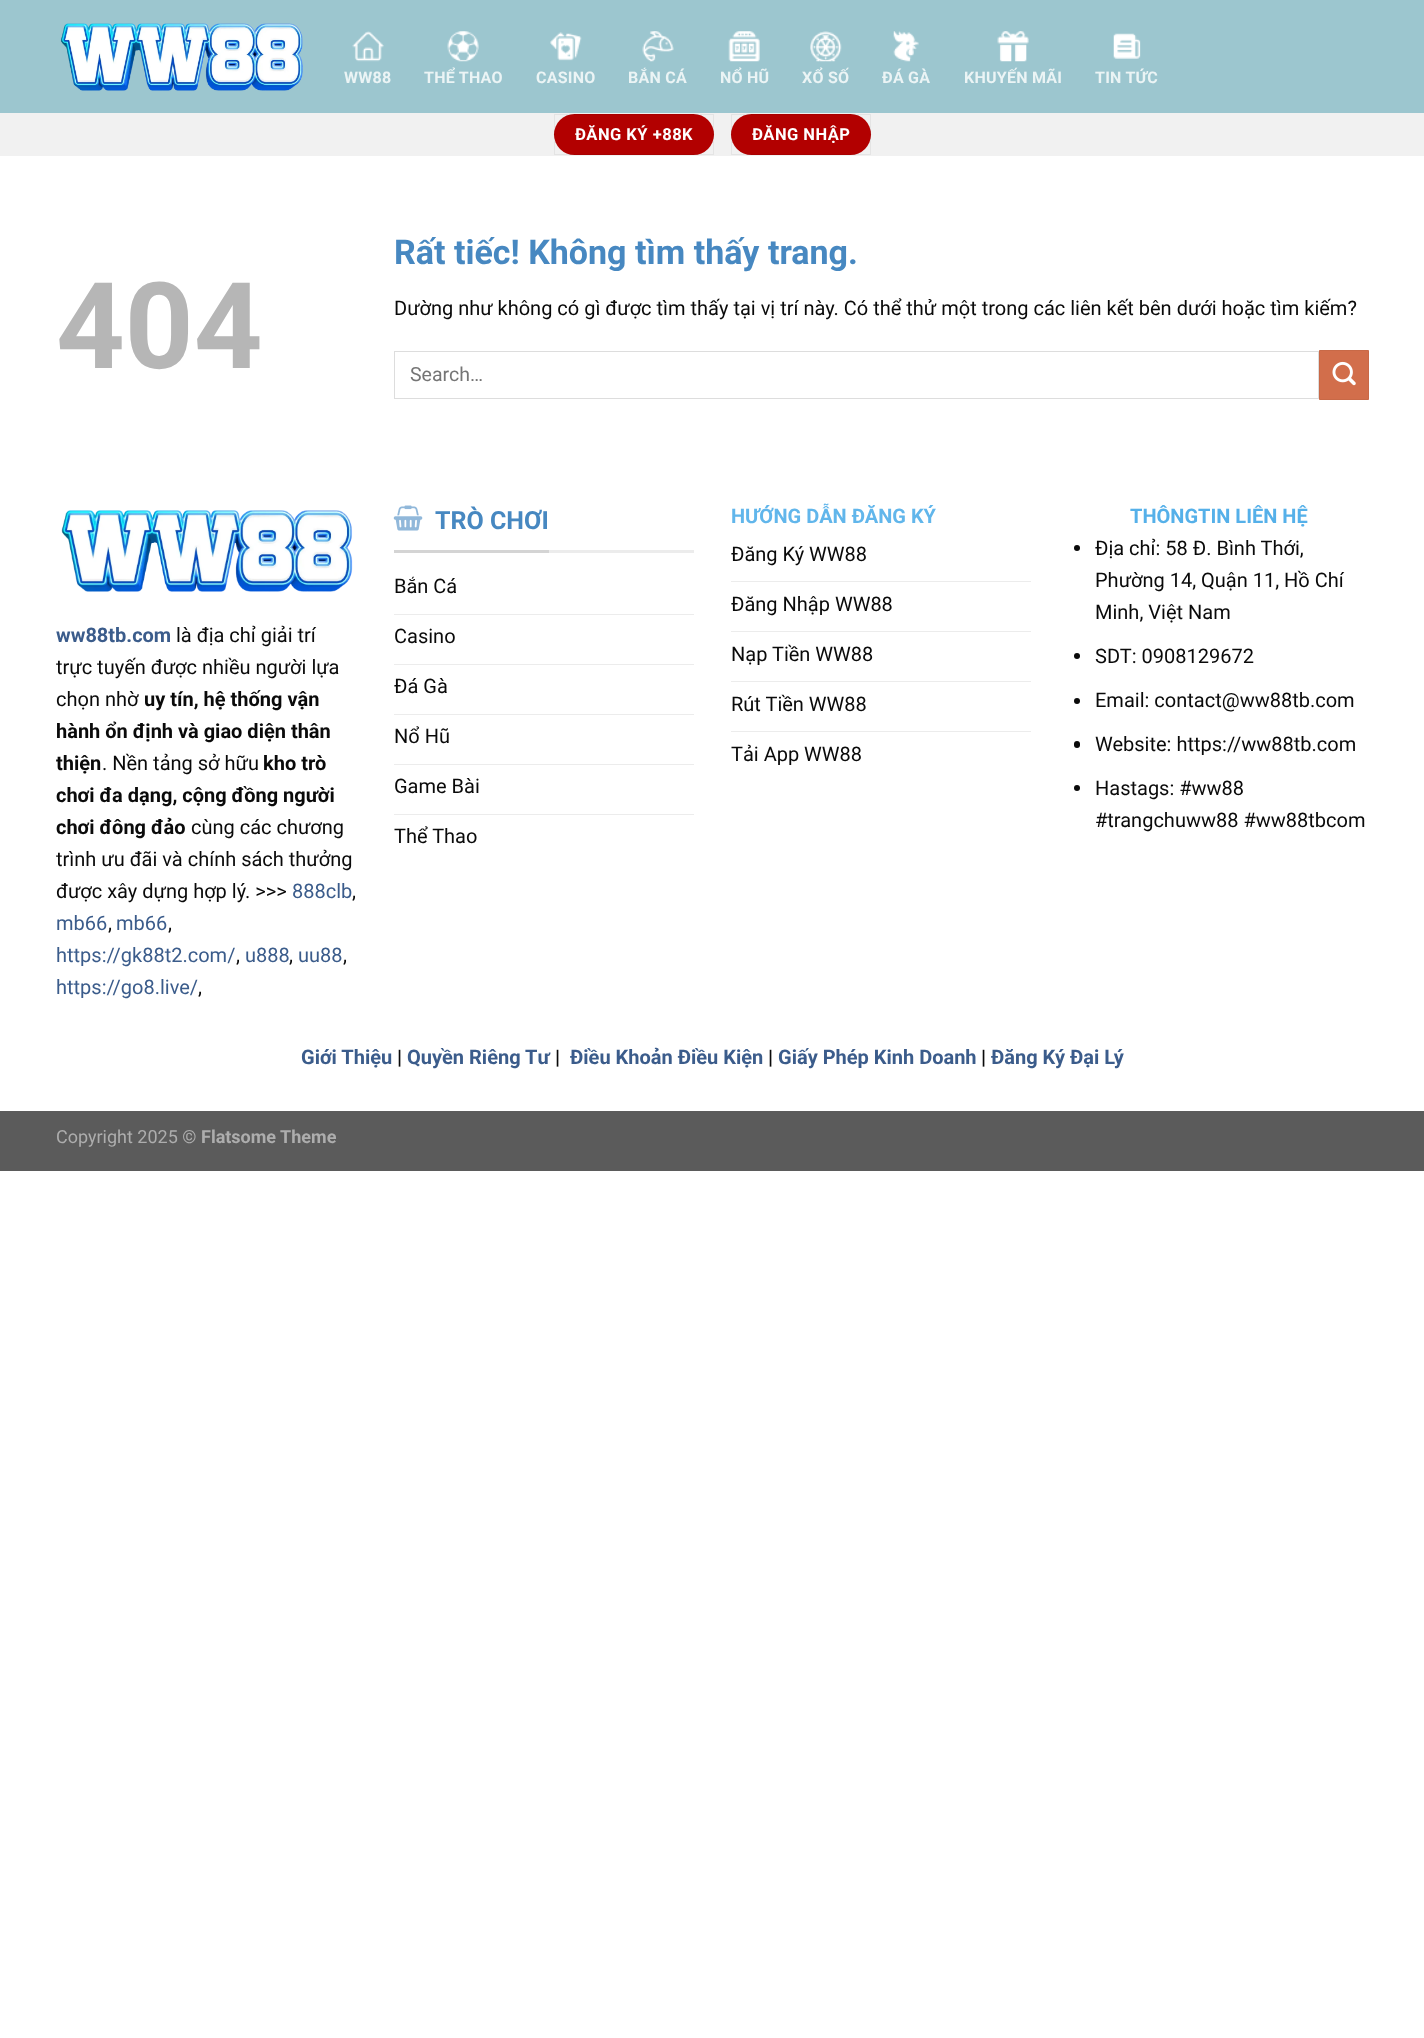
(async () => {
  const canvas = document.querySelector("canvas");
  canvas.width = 1424;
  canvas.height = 2038;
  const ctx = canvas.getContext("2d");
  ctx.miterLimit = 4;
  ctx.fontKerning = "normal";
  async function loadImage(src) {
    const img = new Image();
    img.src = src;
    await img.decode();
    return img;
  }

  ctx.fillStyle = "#ffffff";
  ctx.fillRect(0, 0, 1424, 2038);
  ctx.fillStyle = "#9cc6cf";
  ctx.fillRect(0, 0, 1424, 113);
  ctx.drawImage(await loadImage("img/1.png"), 60, 23, 243, 68);
  ctx.drawImage(await loadImage("img/2.png"), 352, 31, 32, 31);
  ctx.drawImage(await loadImage("img/3.png"), 447, 31, 32, 31);
  ctx.drawImage(await loadImage("img/4.png"), 550, 32, 32, 29);
  ctx.drawImage(await loadImage("img/5.png"), 642, 31, 32, 31);
  ctx.drawImage(await loadImage("img/6.png"), 728, 31, 32, 31);
  ctx.drawImage(await loadImage("img/7.png"), 810, 31, 32, 31);
  ctx.drawImage(await loadImage("img/8.png"), 893, 31, 26, 31);
  ctx.drawImage(await loadImage("img/9.png"), 997, 31, 32, 31);
  ctx.drawImage(await loadImage("img/10.png"), 1113, 33, 28, 26);
  ctx.fillStyle = "#f1f1f1";
  ctx.fillRect(0, 113, 1424, 43);
  ctx.fillStyle = "#b20000";
  ctx.beginPath();
  ctx.roundRect(554, 114, 160, 41, 20.5);
  ctx.fill();
  ctx.strokeStyle = "rgba(0, 0, 0, 0.05)";
  ctx.strokeRect(554.5, 114.5, 159, 40);
  ctx.beginPath();
  ctx.roundRect(731, 114, 140, 41, 20.5);
  ctx.fill();
  ctx.strokeRect(731.5, 114.5, 139, 40);
  ctx.strokeStyle = "#dddddd";
  ctx.strokeRect(394.5, 351.5, 924, 47);
  ctx.fillStyle = "#d26e4b";
  ctx.beginPath();
  ctx.rect(1319.5, 350.5, 49, 49);
  ctx.fill();
  ctx.strokeStyle = "#c86947";
  ctx.stroke();
  ctx.drawImage(await loadImage("img/11.png"), 1332, 361, 24, 25);
  ctx.drawImage(await loadImage("img/12.png"), 61, 510, 292, 82);
  ctx.fillStyle = "#ececec";
  ctx.fillRect(549, 550, 145, 3);
  ctx.fillStyle = "#d4d4d4";
  ctx.fillRect(394, 550, 155, 3);
  ctx.drawImage(await loadImage("img/13.png"), 393, 505, 30, 26);
  for (const [x, y, w, h, color] of [
    [394, 614, 300, 1, "#ececec"],
    [394, 664, 300, 1, "#ececec"],
    [394, 714, 300, 1, "#ececec"],
    [394, 764, 300, 1, "#ececec"],
    [394, 814, 300, 1, "#ececec"],
    [731, 581, 300, 1, "#ececec"],
    [731, 631, 300, 1, "#ececec"],
    [731, 681, 300, 1, "#ececec"],
    [731, 731, 300, 1, "#ececec"],
  ]) {
    ctx.fillStyle = color;
    ctx.fillRect(x, y, w, h);
  }
  ctx.fillStyle = "#0a0a0a";
  ctx.beginPath();
  ctx.arc(1077, 548, 3, 0, Math.PI * 2);
  ctx.fill();
  ctx.beginPath();
  ctx.arc(1077, 656, 3, 0, Math.PI * 2);
  ctx.fill();
  ctx.beginPath();
  ctx.arc(1077, 701, 3, 0, Math.PI * 2);
  ctx.fill();
  ctx.beginPath();
  ctx.roundRect(1074, 741, 6, 7, 3);
  ctx.fill();
  ctx.beginPath();
  ctx.arc(1077, 788, 3, 0, Math.PI * 2);
  ctx.fill();
  ctx.fillStyle = "#5b5b5b";
  ctx.fillRect(0, 1111, 1424, 60);
  ctx.letterSpacing = "0.25px";
  ctx.font = "bold 16px Roboto";
  ctx.fillStyle = "#ebf4f5";
  for (const [text, x, y] of [
    ["WW88", 344, 83],
    ["THỂ THAO", 424, 83],
    ["CASINO", 536, 83],
    ["BẮN CÁ", 628, 83],
    ["NỔ HŨ", 720, 83],
    ["XỔ SỐ", 802, 83],
    ["ĐÁ GÀ", 882, 83],
    ["KHUYẾN MÃI", 964, 83],
    ["TIN TỨC", 1095, 83],
  ]) {
    ctx.fillText(text, x, y);
  }
  ctx.letterSpacing = "0.5px";
  ctx.font = "bold 16.5px Roboto";
  ctx.fillStyle = "#ffffff";
  ctx.fillText("ĐĂNG KÝ +88K", 575, 140);
  ctx.fillText("ĐĂNG NHẬP", 752, 140);
  ctx.letterSpacing = "0px";
  ctx.font = "bold 120px Roboto";
  ctx.fillStyle = "#b6b6b6";
  ctx.fillText("404", 56, 368);
  ctx.font = "bold 34px Roboto";
  ctx.fillStyle = "#4788c1";
  ctx.fillText("Rất tiếc! Không tìm thấy trang.", 394, 264);
  ctx.font = "20px Roboto";
  ctx.fillStyle = "#0a0a0a";
  ctx.fillText("Dường như không có gì được tìm thấy tại vị trí này. Có thể thử một trong các liên kết bên dưới hoặc tìm kiếm?", 394, 315);
  ctx.font = "19.5px Roboto";
  ctx.fillStyle = "#757575";
  ctx.fillText("Search…", 410, 381);
  ctx.font = "bold 20px Roboto";
  ctx.fillStyle = "#3b5c8b";
  ctx.fillText("ww88tb.com", 56, 642);
  ctx.font = "20px Roboto";
  ctx.fillStyle = "#0a0a0a";
  for (const [text, x, y] of [
    ["là địa chỉ giải trí", 176, 642],
    ["trực tuyến được nhiều người lựa", 56, 674],
    ["chọn nhờ", 56, 706],
  ]) {
    ctx.fillText(text, x, y);
  }
  ctx.font = "bold 20px Roboto";
  for (const [text, x, y] of [
    ["uy tín, hệ thống vận", 144, 706],
    ["hành ổn định và giao diện thân", 56, 738],
    ["thiện", 56, 770],
  ]) {
    ctx.fillText(text, x, y);
  }
  ctx.font = "20px Roboto";
  ctx.fillText(". Nền tảng sở hữu", 102, 770);
  ctx.font = "bold 20px Roboto";
  for (const [text, x, y] of [
    ["kho trò", 263, 770],
    ["chơi đa dạng, cộng đồng người", 56, 802],
    ["chơi đông đảo", 56, 834],
  ]) {
    ctx.fillText(text, x, y);
  }
  ctx.font = "20px Roboto";
  for (const [text, x, y] of [
    ["cùng các chương", 191, 834],
    ["trình ưu đãi và chính sách thưởng", 56, 866],
    ["được xây dựng hợp lý. >>>", 56, 898],
  ]) {
    ctx.fillText(text, x, y);
  }
  ctx.fillStyle = "#3b5c8b";
  ctx.fillText("888clb", 292, 898);
  ctx.fillStyle = "#0a0a0a";
  ctx.fillText(",", 352, 898);
  ctx.fillStyle = "#3b5c8b";
  ctx.fillText("mb66", 56, 930);
  ctx.fillStyle = "#0a0a0a";
  ctx.fillText(",", 108, 930);
  ctx.fillStyle = "#3b5c8b";
  ctx.fillText("mb66", 116, 930);
  ctx.fillStyle = "#0a0a0a";
  ctx.fillText(",", 168, 930);
  ctx.fillStyle = "#3b5c8b";
  ctx.fillText("https://gk88t2.com/", 56, 962);
  ctx.fillStyle = "#0a0a0a";
  ctx.fillText(",", 236, 962);
  ctx.fillStyle = "#3b5c8b";
  ctx.fillText("u888", 245, 962);
  ctx.fillStyle = "#0a0a0a";
  ctx.fillText(",", 289, 962);
  ctx.fillStyle = "#3b5c8b";
  ctx.fillText("uu88", 298, 962);
  ctx.fillStyle = "#0a0a0a";
  ctx.fillText(",", 343, 962);
  ctx.fillStyle = "#3b5c8b";
  ctx.fillText("https://go8.live/", 56, 994);
  ctx.fillStyle = "#0a0a0a";
  ctx.fillText(",", 198, 994);
  ctx.font = "bold 25px Roboto";
  ctx.fillStyle = "#4788c1";
  ctx.fillText("TRÒ CHƠI", 435, 529);
  ctx.font = "20px Roboto";
  ctx.fillStyle = "#0a0a0a";
  for (const [text, x, y] of [
    ["Bắn Cá", 394, 593],
    ["Casino", 394, 643],
    ["Đá Gà", 394, 693],
    ["Nổ Hũ", 394, 743],
    ["Game Bài", 394, 793],
    ["Thể Thao", 394, 843],
  ]) {
    ctx.fillText(text, x, y);
  }
  ctx.font = "bold 20px Roboto";
  ctx.fillStyle = "#61b6eb";
  ctx.fillText("HƯỚNG DẪN ĐĂNG KÝ", 731, 523);
  ctx.font = "20px Roboto";
  ctx.fillStyle = "#0a0a0a";
  for (const [text, x, y] of [
    ["Đăng Ký WW88", 731, 561],
    ["Đăng Nhập WW88", 731, 611],
    ["Nạp Tiền WW88", 731, 661],
    ["Rút Tiền WW88", 731, 711],
    ["Tải App WW88", 731, 761],
  ]) {
    ctx.fillText(text, x, y);
  }
  ctx.font = "bold 20px Roboto";
  ctx.fillStyle = "#55b0e9";
  ctx.fillText("THÔNGTIN LIÊN HỆ", 1130, 523);
  ctx.font = "20px Roboto";
  ctx.fillStyle = "#0a0a0a";
  for (const [text, x, y] of [
    ["Địa chỉ: 58 Đ. Bình Thới,", 1095, 555],
    ["Phường 14, Quận 11, Hồ Chí", 1095, 587],
    ["Minh, Việt Nam", 1095, 619],
    ["SDT: 0908129672", 1095, 663],
    ["Email: contact@ww88tb.com", 1095, 707],
    ["Website: https://ww88tb.com", 1095, 751],
    ["Hastags: #ww88", 1095, 795],
    ["#trangchuww88 #ww88tbcom", 1095, 827],
  ]) {
    ctx.fillText(text, x, y);
  }
  ctx.font = "bold 20px Roboto";
  ctx.fillStyle = "#3b5c8b";
  ctx.fillText("Giới Thiệu", 301, 1064);
  ctx.fillStyle = "#0a0a0a";
  ctx.fillText("|", 397, 1064);
  ctx.fillStyle = "#3b5c8b";
  ctx.fillText("Quyền Riêng Tư", 407, 1064);
  ctx.fillStyle = "#0a0a0a";
  ctx.fillText("|", 555, 1064);
  ctx.fillStyle = "#3b5c8b";
  ctx.fillText("Điều Khoản Điều Kiện", 570, 1064);
  ctx.fillStyle = "#0a0a0a";
  ctx.fillText("|", 768, 1064);
  ctx.fillStyle = "#3b5c8b";
  ctx.fillText("Giấy Phép Kinh Doanh", 778, 1064);
  ctx.fillStyle = "#0a0a0a";
  ctx.fillText("|", 981, 1064);
  ctx.fillStyle = "#3b5c8b";
  ctx.fillText("Đăng Ký Đại Lý", 991, 1064);
  ctx.font = "18px Roboto";
  ctx.fillStyle = "#adadad";
  ctx.fillText("Copyright 2025 ©", 56, 1143);
  ctx.font = "bold 18px Roboto";
  ctx.fillText("Flatsome Theme", 201, 1143);
})();
